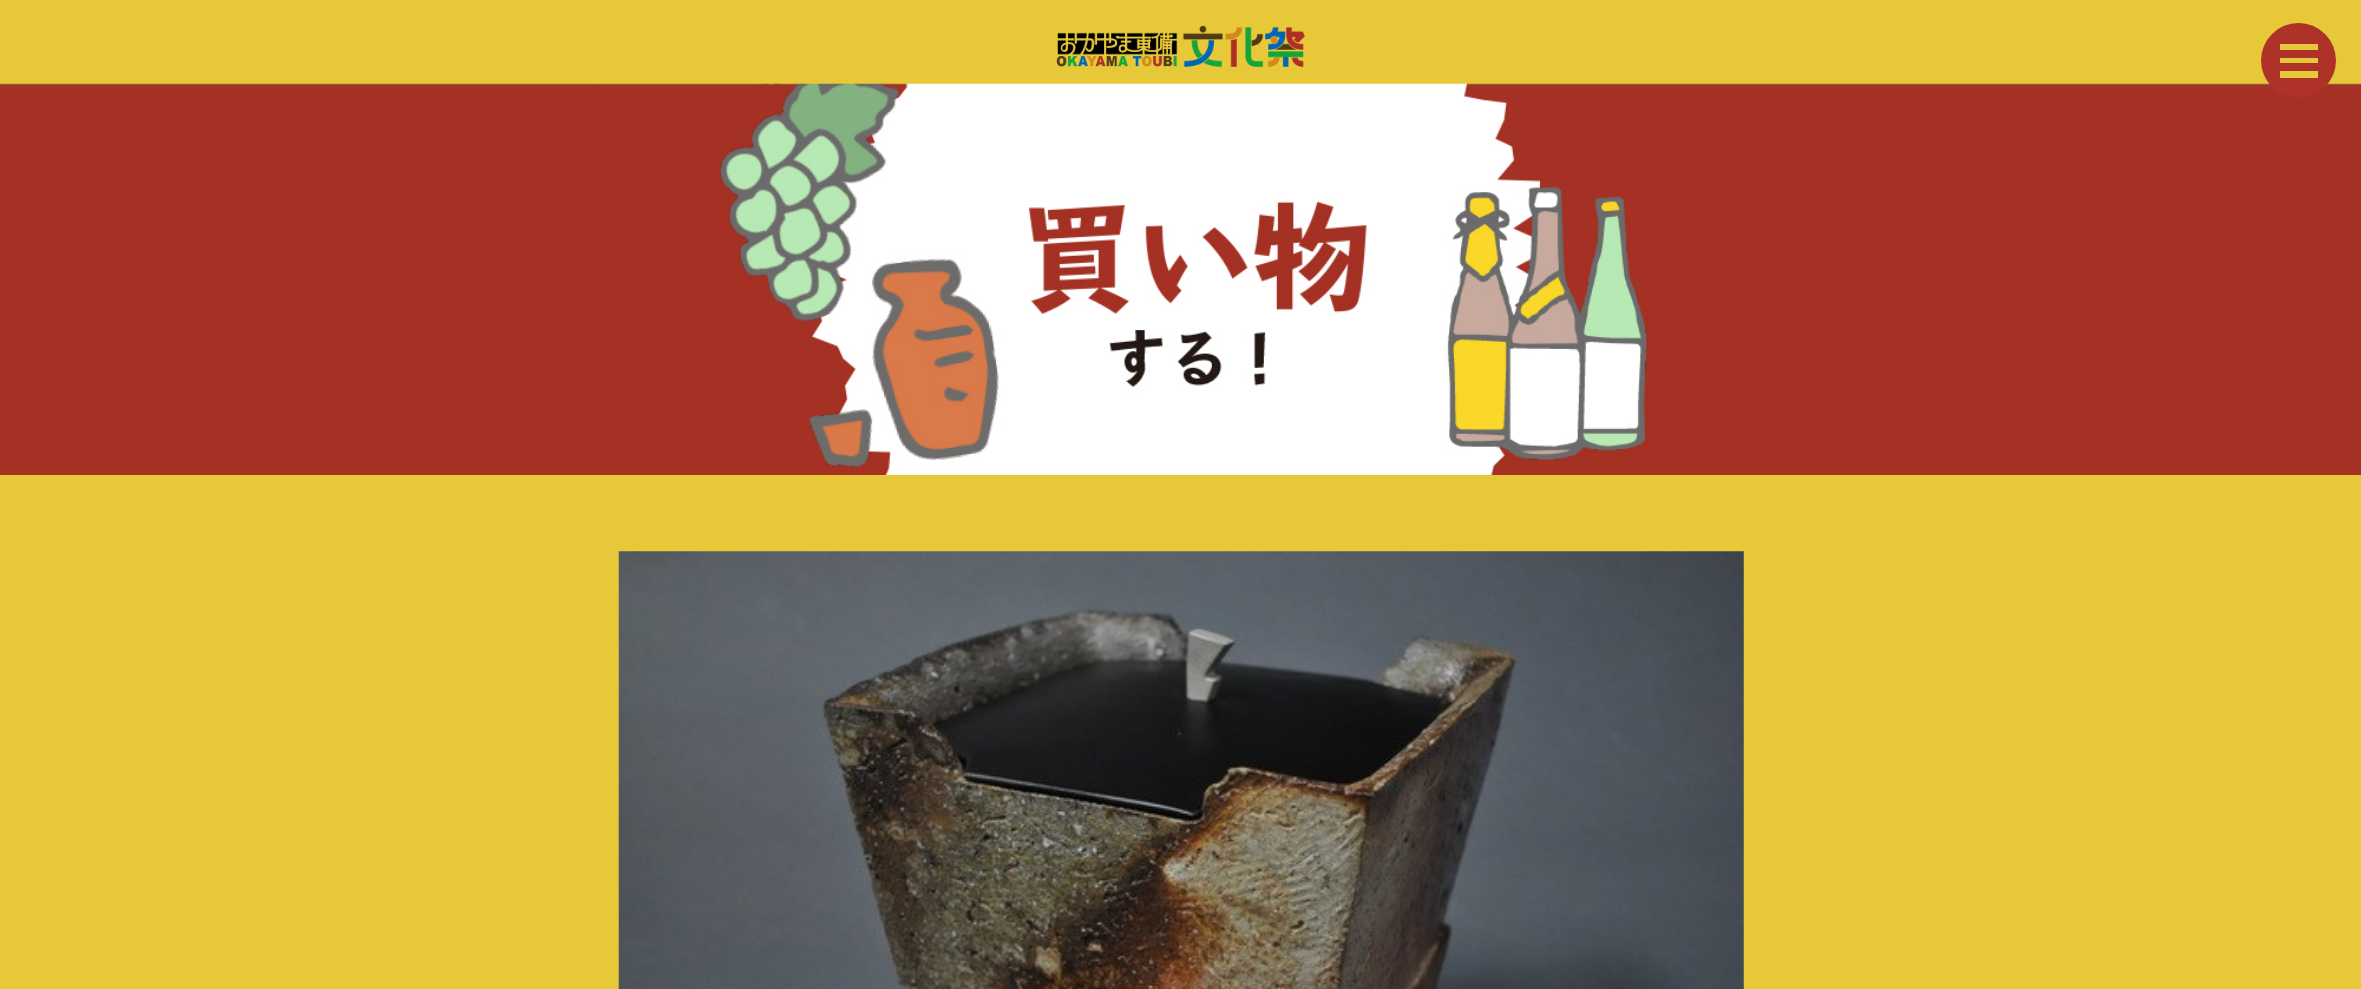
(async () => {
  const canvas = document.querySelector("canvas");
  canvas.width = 2361;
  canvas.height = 989;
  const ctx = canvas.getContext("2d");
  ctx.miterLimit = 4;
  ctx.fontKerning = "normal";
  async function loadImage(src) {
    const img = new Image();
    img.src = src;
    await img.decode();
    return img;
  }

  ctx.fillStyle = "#e6c839";
  ctx.fillRect(0, 0, 2361, 989);
  ctx.drawImage(await loadImage("img/1.png"), 1056, 25, 250, 42);
  ctx.drawImage(await loadImage("img/2.png"), 0, 83, 2361, 392);
  ctx.fillStyle = "#ae3228";
  ctx.beginPath();
  ctx.arc(2298.5, 60.5, 37.5, 0, Math.PI * 2);
  ctx.fill();
  for (const [x, y, w, h, color] of [
    [2280, 58, 38, 5, "#e6c839"],
    [2280, 44, 38, 6, "#e6c839"],
    [2280, 71, 38, 7, "#e6c839"],
  ]) {
    ctx.fillStyle = color;
    ctx.fillRect(x, y, w, h);
  }
  ctx.drawImage(await loadImage("img/3.png"), 618, 551, 1126, 438);
})();
